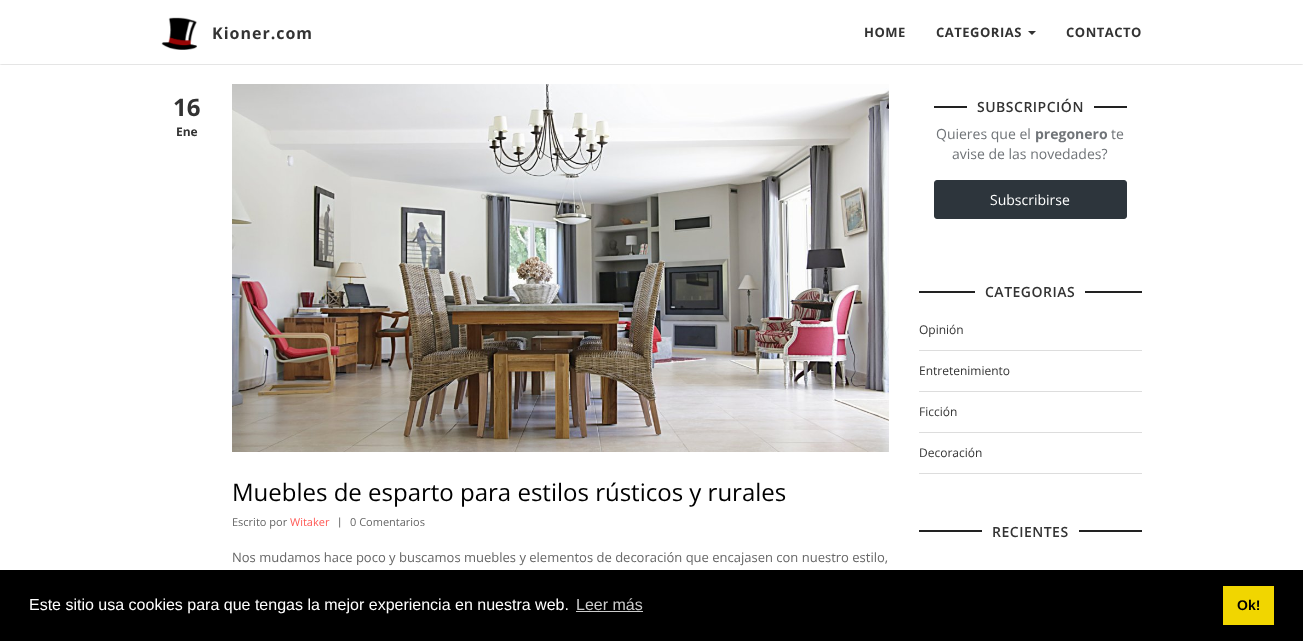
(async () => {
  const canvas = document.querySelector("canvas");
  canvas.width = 1303;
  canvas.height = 641;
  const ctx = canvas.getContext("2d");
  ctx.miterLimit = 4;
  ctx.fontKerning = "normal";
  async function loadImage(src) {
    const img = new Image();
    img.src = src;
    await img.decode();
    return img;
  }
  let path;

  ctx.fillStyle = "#ffffff";
  ctx.fillRect(0, 0, 1303, 641);
  ctx.save();
  ctx.beginPath();
  ctx.rect(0, 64, 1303, 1);
  ctx.clip();
  ctx.fillStyle = "rgba(0, 0, 0, 0.3)";
  ctx.filter = "blur(1px)";
  ctx.beginPath();
  ctx.rect(0, 0, 1303, 64);
  ctx.fill();
  ctx.filter = "none";
  ctx.restore();
  ctx.drawImage(await loadImage("img/1.png"), 161, 17, 36, 33);
  ctx.fillStyle = "#333333";
  path = new Path2D("M1028 31H1036L1032 35Z");
  ctx.fill(path);
  ctx.drawImage(await loadImage("img/2.png"), 232, 84, 657, 368);
  ctx.fillStyle = "#222222";
  ctx.fillRect(934, 106, 193, 2);
  ctx.fillStyle = "#ffffff";
  ctx.fillRect(967, 106, 127, 2);
  ctx.fillStyle = "#2d353c";
  ctx.beginPath();
  ctx.roundRect(934.5, 180.5, 192, 38, 2.5);
  ctx.fill();
  ctx.strokeStyle = "#2d353c";
  ctx.stroke();
  for (const [x, y, w, h, color] of [
    [919, 291, 223, 2, "#222222"],
    [975, 291, 110, 2, "#ffffff"],
    [919, 350, 223, 1, "#dddddd"],
    [919, 391, 223, 1, "#dddddd"],
    [919, 432, 223, 1, "#dddddd"],
    [919, 473, 223, 1, "#dddddd"],
    [919, 530, 223, 2, "#222222"],
    [982, 530, 97, 2, "#ffffff"],
    [0, 570, 1303, 71, "#000000"],
    [576, 611, 67, 1, "#cccccc"],
    [1223, 586, 51, 39, "#f1d600"],
  ]) {
    ctx.fillStyle = color;
    ctx.fillRect(x, y, w, h);
  }
  ctx.letterSpacing = "1px";
  ctx.font = "bold 16px Open Sans";
  ctx.fillStyle = "#333333";
  ctx.fillText("Kioner.com", 212, 39);
  ctx.letterSpacing = "0.5px";
  ctx.font = "bold 13px Open Sans";
  for (const [text, x, y] of [
    ["HOME", 864, 37],
    ["CATEGORIAS", 936, 37],
    ["CONTACTO", 1066, 37],
  ]) {
    ctx.fillText(text, x, y);
  }
  ctx.letterSpacing = "0px";
  ctx.font = "bold 24px Open Sans";
  ctx.fillText("16", 173, 116);
  ctx.font = "bold 12px Open Sans";
  ctx.fillText("Ene", 176, 136);
  ctx.font = "24px Open Sans";
  ctx.fillStyle = "#000000";
  ctx.fillText("Muebles de esparto para estilos rústicos y rurales", 232, 501);
  ctx.font = "11px Open Sans";
  ctx.fillStyle = "#666666";
  ctx.fillText("Escrito por", 232, 526);
  ctx.fillStyle = "#ff5b57";
  ctx.fillText("Witaker", 290, 526);
  ctx.font = "10px Open Sans";
  ctx.fillStyle = "#333333";
  ctx.fillText("|", 337, 525);
  ctx.font = "11px Open Sans";
  ctx.fillStyle = "#666666";
  ctx.fillText("0 Comentarios", 350, 526);
  ctx.font = "13px Open Sans";
  ctx.fillText("Nos mudamos hace poco y buscamos muebles y elementos de decoración que encajasen con nuestro estilo,", 232, 562);
  ctx.letterSpacing = "0.5px";
  ctx.font = "600 14px Open Sans";
  ctx.fillStyle = "#333333";
  ctx.fillText("SUBSCRIPCIÓN", 977, 112);
  ctx.letterSpacing = "0px";
  ctx.font = "14px Open Sans";
  ctx.fillStyle = "#707478";
  ctx.fillText("Quieres que el", 936, 139);
  ctx.font = "bold 14px Open Sans";
  ctx.fillText("pregonero", 1035, 139);
  ctx.font = "14px Open Sans";
  ctx.fillText("te", 1111, 139);
  ctx.fillText("avise de las novedades?", 952, 159);
  ctx.fillStyle = "#ffffff";
  ctx.fillText("Subscribirse", 990, 205);
  ctx.letterSpacing = "0.5px";
  ctx.font = "600 14px Open Sans";
  ctx.fillStyle = "#333333";
  ctx.fillText("CATEGORIAS", 985, 297);
  ctx.letterSpacing = "0px";
  ctx.font = "12px Open Sans";
  for (const [text, x, y] of [
    ["Opinión", 919, 334],
    ["Entretenimiento", 919, 375],
    ["Ficción", 919, 416],
    ["Decoración", 919, 457],
  ]) {
    ctx.fillText(text, x, y);
  }
  ctx.letterSpacing = "0.5px";
  ctx.font = "600 14px Open Sans";
  ctx.fillText("RECIENTES", 992, 537);
  ctx.letterSpacing = "0px";
  ctx.font = "16px Liberation Sans";
  ctx.fillStyle = "#ffffff";
  ctx.fillText("Este sitio usa cookies para que tengas la mejor experiencia en nuestra web.", 29, 610);
  ctx.fillStyle = "#cccccc";
  ctx.fillText("Leer más", 576, 610);
  ctx.font = "bold 14px Liberation Sans";
  ctx.fillStyle = "#000000";
  ctx.fillText("Ok!", 1237, 610);
})();
